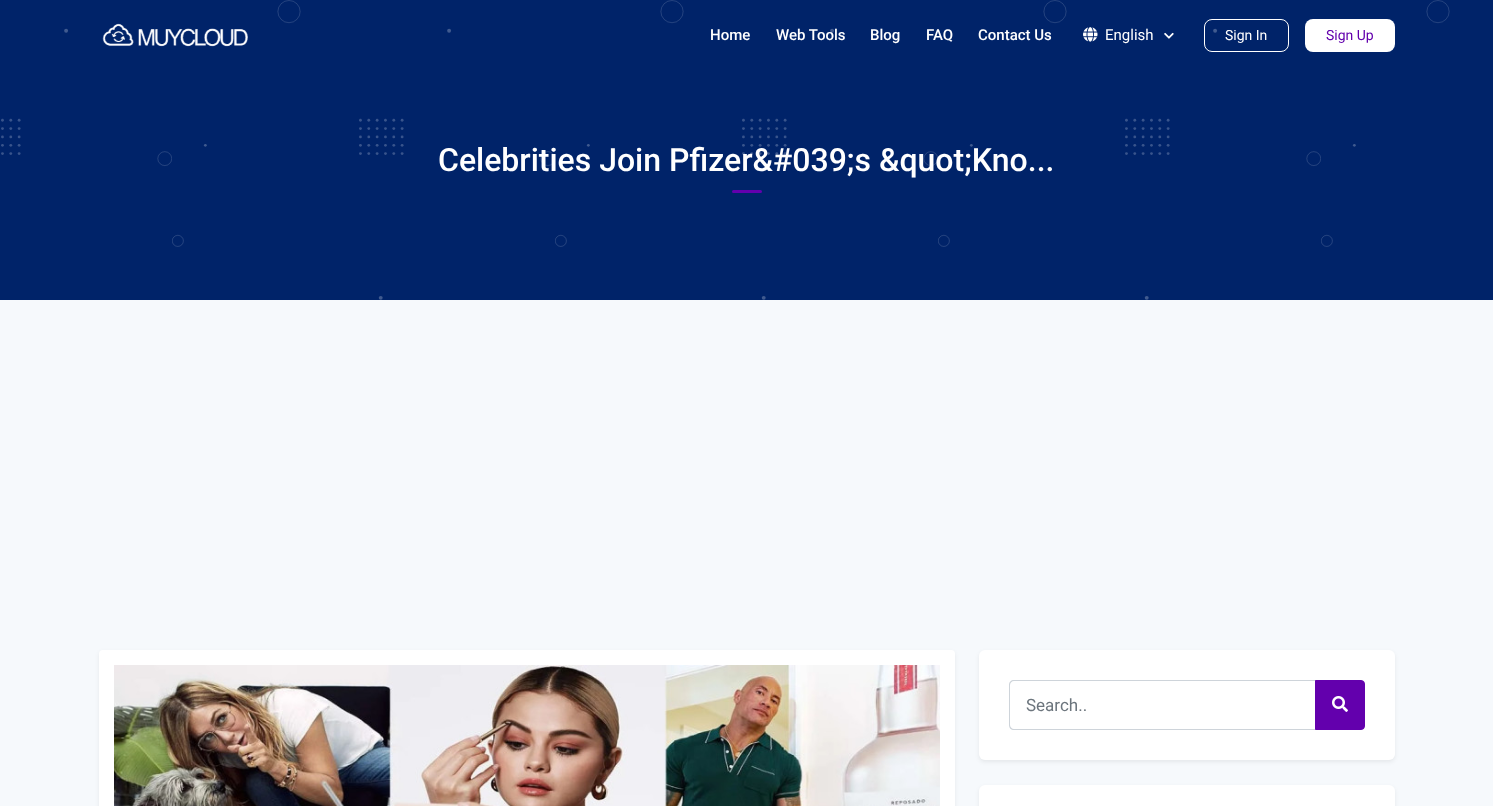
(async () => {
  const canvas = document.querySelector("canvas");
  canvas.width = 1493;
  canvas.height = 806;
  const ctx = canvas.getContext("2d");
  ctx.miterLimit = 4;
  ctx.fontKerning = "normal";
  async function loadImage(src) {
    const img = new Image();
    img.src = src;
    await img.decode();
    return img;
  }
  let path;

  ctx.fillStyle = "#f6f9fc";
  ctx.fillRect(0, 0, 1493, 806);
  ctx.drawImage(await loadImage("img/1.png"), 0, 0, 1493, 300);
  ctx.drawImage(await loadImage("img/2.png"), 102, 23, 146, 24);
  ctx.drawImage(await loadImage("img/3.png"), 1083, 27, 15, 15);
  ctx.drawImage(await loadImage("img/4.png"), 1164, 32, 10, 7);
  ctx.beginPath();
  ctx.roundRect(1204.5, 19.5, 84, 32, 7.5);
  ctx.strokeStyle = "#ffffff";
  ctx.stroke();
  ctx.fillStyle = "#ffffff";
  ctx.beginPath();
  ctx.roundRect(1305, 19, 90, 33, 8);
  ctx.fill();
  ctx.fillStyle = "#6300ad";
  ctx.beginPath();
  ctx.roundRect(732, 190, 30, 3, 1.5);
  ctx.fill();
  ctx.fillStyle = "rgba(0, 0, 0, 0.07)";
  ctx.filter = "blur(2px)";
  ctx.beginPath();
  ctx.roundRect(99, 652, 856, 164, 4);
  ctx.fill();
  ctx.filter = "none";
  ctx.fillStyle = "#ffffff";
  ctx.beginPath();
  ctx.roundRect(99, 650, 856, 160, 4);
  ctx.fill();
  ctx.drawImage(await loadImage("img/5.png"), 114, 665, 826, 141);
  ctx.fillStyle = "rgba(0, 0, 0, 0.07)";
  ctx.filter = "blur(2px)";
  ctx.beginPath();
  ctx.roundRect(979, 652, 416, 110, 6);
  ctx.fill();
  ctx.filter = "none";
  ctx.fillStyle = "#ffffff";
  ctx.beginPath();
  ctx.roundRect(979, 650, 416, 110, 6);
  ctx.fill();
  ctx.fillStyle = "#ced4da";
  path = new Path2D("M1014 680H1316V730H1014C1011 730 1009 728 1009 725V685C1009 682 1011 680 1014 680ZM1014 681H1316V729H1014C1012 729 1010 727 1010 725V685C1010 683 1012 681 1014 681Z");
  ctx.fill(path, "evenodd");
  ctx.fillStyle = "#6300ad";
  ctx.beginPath();
  ctx.roundRect(1315.5, 680.5, 49, 49, [0, 3.5, 3.5, 0]);
  ctx.fill();
  ctx.strokeStyle = "#6300ad";
  ctx.stroke();
  ctx.drawImage(await loadImage("img/6.png"), 1332, 696, 16, 16);
  ctx.fillStyle = "rgba(0, 0, 0, 0.07)";
  ctx.filter = "blur(2px)";
  ctx.beginPath();
  ctx.roundRect(979, 787, 416, 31, 6);
  ctx.fill();
  ctx.filter = "none";
  ctx.fillStyle = "#ffffff";
  ctx.beginPath();
  ctx.roundRect(979, 785, 416, 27, 6);
  ctx.fill();
  ctx.font = "500 15px Roboto";
  for (const [text, x, y] of [
    ["Home", 710, 40],
    ["Web Tools", 776, 40],
    ["Blog", 870, 40],
    ["FAQ", 926, 40],
    ["Contact Us", 978, 40],
  ]) {
    ctx.fillText(text, x, y);
  }
  ctx.font = "15px Roboto";
  ctx.fillText("English", 1105, 40);
  ctx.font = "14px Roboto";
  ctx.fillText("Sign In", 1225, 40);
  ctx.fillStyle = "#6300ad";
  ctx.fillText("Sign Up", 1326, 40);
  ctx.font = "500 32px Roboto";
  ctx.fillStyle = "#ffffff";
  ctx.fillText("Celebrities Join Pfizer&#039;s &quot;Kno...", 438, 171);
  ctx.font = "17px Roboto";
  ctx.fillStyle = "#6c757d";
  ctx.fillText("Search..", 1026, 711);
})();
